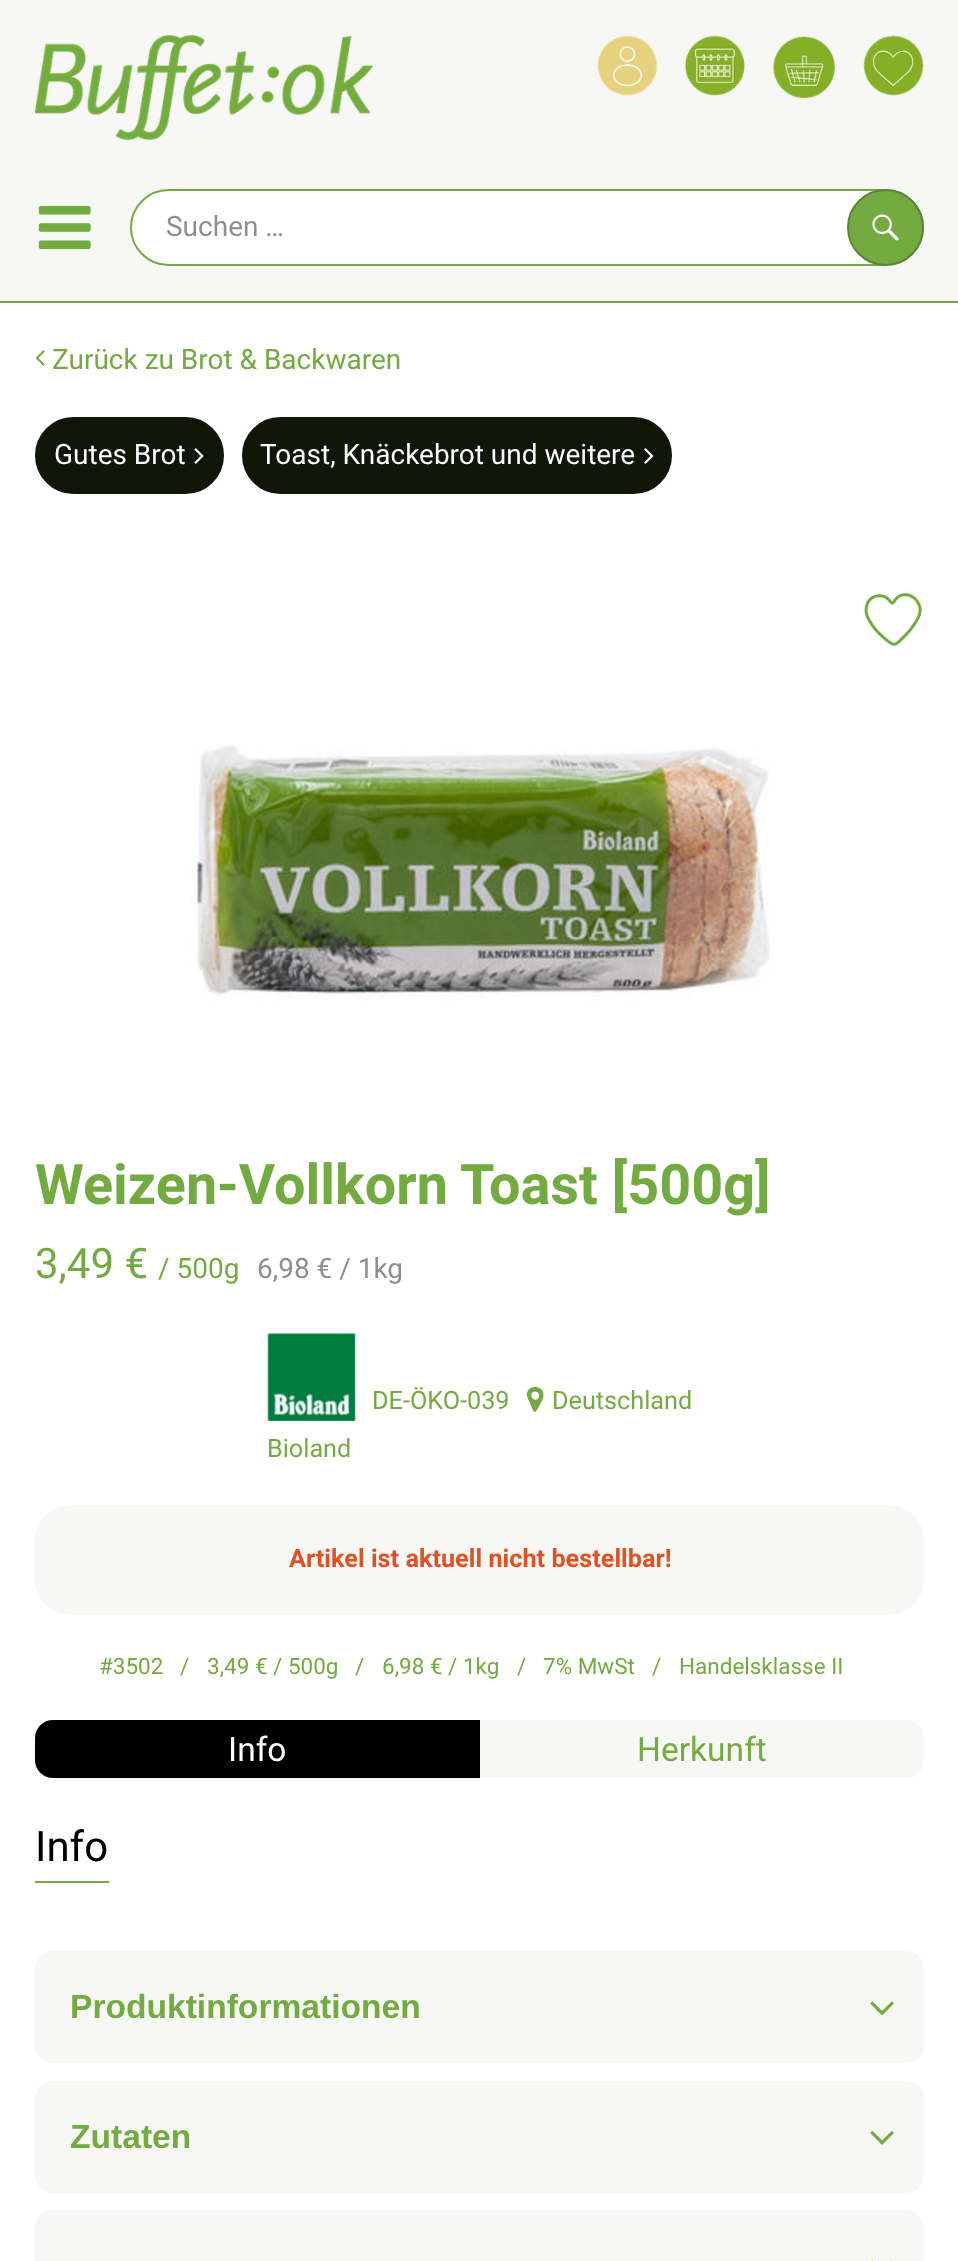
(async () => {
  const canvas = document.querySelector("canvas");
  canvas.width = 958;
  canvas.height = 2261;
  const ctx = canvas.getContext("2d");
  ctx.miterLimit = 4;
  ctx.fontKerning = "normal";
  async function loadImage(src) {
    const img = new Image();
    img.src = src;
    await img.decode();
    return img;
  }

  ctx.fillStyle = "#ffffff";
  ctx.fillRect(0, 0, 958, 2261);
  ctx.fillStyle = "#f7f7f5";
  ctx.fillRect(0, 0, 958, 301);
  ctx.drawImage(await loadImage("img/1.png"), 35, 35, 338, 105);
  ctx.drawImage(await loadImage("img/2.png"), 597, 35, 61, 61);
  ctx.drawImage(await loadImage("img/3.png"), 685, 35, 60, 61);
  ctx.drawImage(await loadImage("img/4.png"), 773, 36, 62, 62);
  ctx.drawImage(await loadImage("img/5.png"), 863, 35, 61, 61);
  ctx.drawImage(await loadImage("img/6.png"), 38, 205, 53, 45);
  ctx.fillStyle = "#ffffff";
  ctx.beginPath();
  ctx.roundRect(131, 190, 792, 75, 37.5);
  ctx.fill();
  ctx.strokeStyle = "#73ab41";
  ctx.lineWidth = 2;
  ctx.stroke();
  ctx.fillStyle = "#73ab41";
  ctx.beginPath();
  ctx.arc(885.5, 227.5, 37.5, 0, Math.PI * 2);
  ctx.fill();
  ctx.strokeStyle = "#5a8633";
  ctx.stroke();
  ctx.drawImage(await loadImage("img/7.png"), 872, 214, 27, 27);
  ctx.fillRect(0, 301, 958, 2);
  ctx.drawImage(await loadImage("img/8.png"), 35, 350, 10, 16);
  ctx.fillStyle = "#101709";
  ctx.beginPath();
  ctx.roundRect(36, 418, 187, 75, 37.5);
  ctx.fill();
  ctx.strokeStyle = "#101709";
  ctx.stroke();
  ctx.drawImage(await loadImage("img/9.png"), 194, 448, 10, 16);
  ctx.beginPath();
  ctx.roundRect(243, 418, 428, 75, 37.5);
  ctx.fill();
  ctx.stroke();
  ctx.drawImage(await loadImage("img/10.png"), 644, 448, 10, 16);
  ctx.drawImage(await loadImage("img/11.png"), 864, 593, 58, 53);
  ctx.drawImage(await loadImage("img/12.png"), 191, 745, 579, 256);
  ctx.drawImage(await loadImage("img/13.png"), 526, 1386, 18, 26);
  ctx.drawImage(await loadImage("img/14.png"), 267, 1333, 89, 88);
  ctx.fillStyle = "#f7f7f5";
  ctx.beginPath();
  ctx.roundRect(35, 1505, 889, 110, 35);
  ctx.fill();
  ctx.fillStyle = "#000000";
  ctx.beginPath();
  ctx.roundRect(35, 1720, 445, 58, [18, 0, 0, 18]);
  ctx.fill();
  ctx.fillStyle = "#f7f7f5";
  ctx.beginPath();
  ctx.roundRect(480, 1720, 444, 58, [0, 18, 18, 0]);
  ctx.fill();
  ctx.fillStyle = "#73ab41";
  ctx.fillRect(35, 1881, 74, 2);
  ctx.fillStyle = "#f7f7f5";
  ctx.beginPath();
  ctx.roundRect(35, 1951, 889, 112, 18);
  ctx.fill();
  ctx.drawImage(await loadImage("img/15.png"), 870, 2001, 24, 15);
  ctx.beginPath();
  ctx.roundRect(35, 2081, 889, 112, 18);
  ctx.fill();
  ctx.drawImage(await loadImage("img/16.png"), 870, 2131, 24, 14);
  ctx.beginPath();
  ctx.roundRect(35, 2210, 889, 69, 18);
  ctx.fill();
  ctx.drawImage(await loadImage("img/17.png"), 871, 2260, 22, 1);
  ctx.font = "28px Roboto";
  ctx.fillStyle = "#8e8e8e";
  ctx.fillText("Suchen …", 166, 236);
  ctx.fillStyle = "#73ab41";
  ctx.fillText("Zurück zu Brot & Backwaren", 52, 369);
  ctx.fillStyle = "#ffffff";
  ctx.fillText("Gutes Brot", 54, 464);
  ctx.fillText("Toast, Knäckebrot und weitere", 260, 464);
  ctx.font = "bold 55.75px Roboto";
  ctx.fillStyle = "#73ab41";
  ctx.fillText("Weizen-Vollkorn Toast [500g]", 35, 1204);
  ctx.font = "42px Roboto";
  ctx.fillText("3,49 €", 35, 1278);
  ctx.font = "28px Roboto";
  ctx.fillText("/ 500g", 158, 1278);
  ctx.fillStyle = "#8e8e8e";
  ctx.fillText("6,98 € / 1kg", 257, 1278);
  ctx.font = "25.25px Roboto";
  ctx.fillStyle = "#73ab41";
  for (const [text, x, y] of [
    ["DE-ÖKO-039", 372, 1409],
    ["Deutschland", 552, 1409],
    ["Bioland", 267, 1457],
  ]) {
    ctx.fillText(text, x, y);
  }
  ctx.font = "bold 25.25px Roboto";
  ctx.fillStyle = "#e05224";
  ctx.fillText("Artikel ist aktuell nicht bestellbar!", 289, 1567);
  ctx.font = "22.5px Roboto";
  ctx.fillStyle = "#73ab41";
  for (const [text, x, y] of [
    ["#3502", 99, 1674],
    ["/", 180, 1674],
    ["3,49 € / 500g", 207, 1674],
    ["/", 355, 1674],
    ["6,98 € / 1kg", 382, 1674],
    ["/", 517, 1674],
    ["7% MwSt", 543, 1674],
    ["/", 652, 1674],
    ["Handelsklasse II", 679, 1674],
  ]) {
    ctx.fillText(text, x, y);
  }
  ctx.font = "33.6px Roboto";
  ctx.fillStyle = "#ffffff";
  ctx.fillText("Info", 228, 1761);
  ctx.fillStyle = "#73ab41";
  ctx.fillText("Herkunft", 637, 1761);
  ctx.font = "42px Roboto";
  ctx.fillStyle = "#000000";
  ctx.fillText("Info", 35, 1861);
  ctx.font = "bold 33.6px Liberation Sans";
  ctx.fillStyle = "#73ab41";
  ctx.fillText("Produktinformationen", 70, 2018);
  ctx.fillText("Zutaten", 70, 2148);
})();
